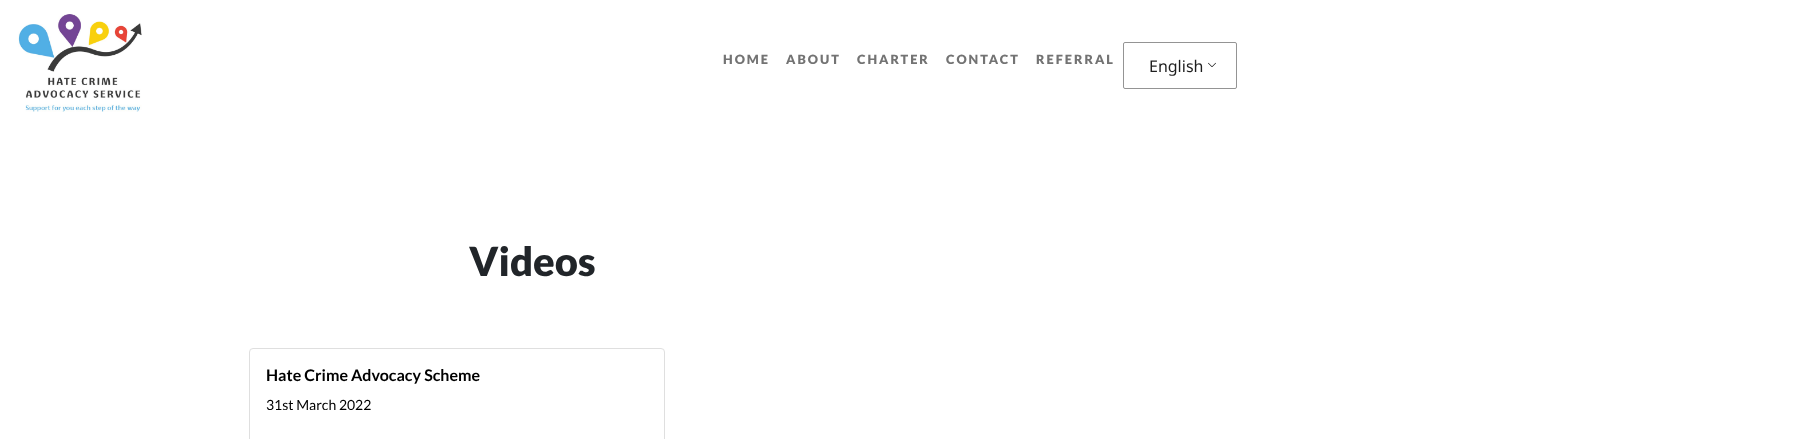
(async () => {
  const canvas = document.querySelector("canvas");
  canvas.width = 1793;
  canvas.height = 439;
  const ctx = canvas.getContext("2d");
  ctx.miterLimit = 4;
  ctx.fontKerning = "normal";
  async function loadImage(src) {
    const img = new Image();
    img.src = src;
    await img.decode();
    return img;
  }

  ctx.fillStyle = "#ffffff";
  ctx.fillRect(0, 0, 1793, 439);
  ctx.drawImage(await loadImage("img/1.png"), 18, 14, 124, 98);
  ctx.drawImage(await loadImage("img/2.png"), 1208, 62, 8, 5);
  ctx.beginPath();
  ctx.roundRect(1123.5, 42.5, 113, 46, 1.5);
  ctx.strokeStyle = "#949494";
  ctx.stroke();
  ctx.beginPath();
  ctx.roundRect(249.5, 348.5, 415, 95, 3.5);
  ctx.strokeStyle = "#dfdfdf";
  ctx.stroke();
  ctx.letterSpacing = "2px";
  ctx.font = "900 12.75px Lato";
  ctx.fillStyle = "#737373";
  for (const [text, x, y] of [
    ["HOME", 723, 64],
    ["ABOUT", 786, 64],
    ["CHARTER", 857, 64],
    ["CONTACT", 946, 64],
    ["REFERRAL", 1036, 64],
  ]) {
    ctx.fillText(text, x, y);
  }
  ctx.letterSpacing = "0px";
  ctx.font = "16px Noto Sans";
  ctx.fillStyle = "#1e1e1e";
  ctx.fillText("English", 1149, 72);
  ctx.font = "900 40px Lato";
  ctx.fillStyle = "#212529";
  ctx.fillText("Videos", 469, 276);
  ctx.font = "bold 16px Lato";
  ctx.fillStyle = "#000000";
  ctx.fillText("Hate Crime Advocacy Scheme", 266, 381);
  ctx.font = "14px Lato";
  ctx.fillText("31st March 2022", 266, 410);
})();
